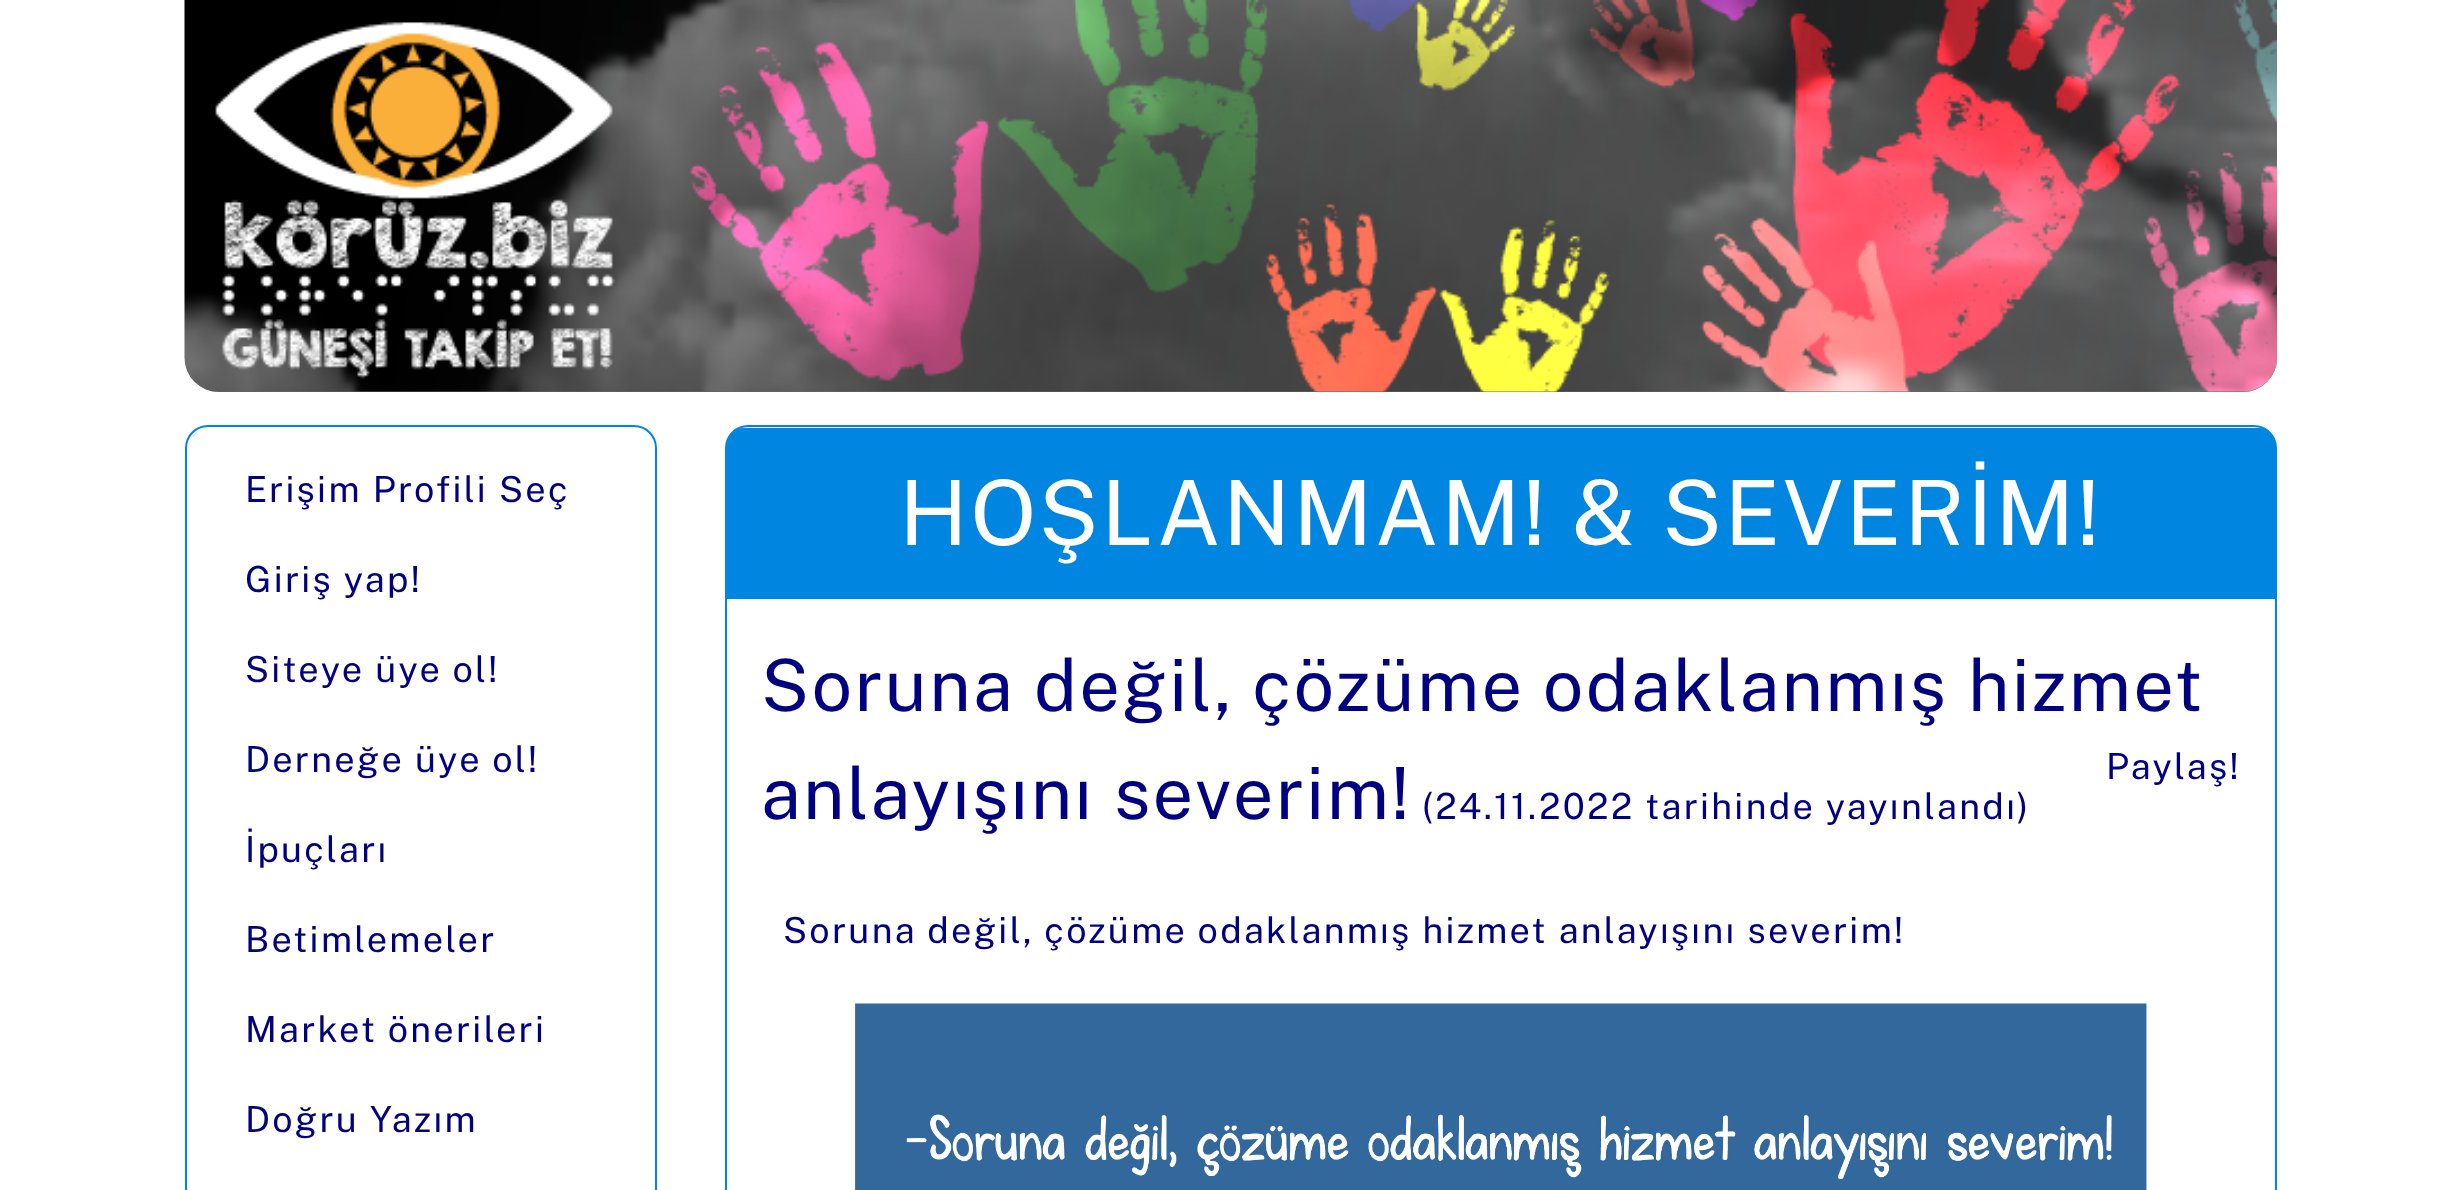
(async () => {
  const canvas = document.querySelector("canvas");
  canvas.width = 2460;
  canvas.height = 1190;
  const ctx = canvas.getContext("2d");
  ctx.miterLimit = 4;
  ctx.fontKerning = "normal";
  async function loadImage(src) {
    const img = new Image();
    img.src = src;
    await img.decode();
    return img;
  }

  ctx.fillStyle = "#ffffff";
  ctx.fillRect(0, 0, 2460, 1190);
  ctx.fillStyle = "#636464";
  ctx.beginPath();
  ctx.roundRect(185, 0, 2092, 392, [0, 0, 34, 34]);
  ctx.fill();
  ctx.drawImage(await loadImage("img/1.png"), 184, 0, 2093, 392);
  ctx.beginPath();
  ctx.roundRect(186, 426, 470, 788, 22);
  ctx.strokeStyle = "#0086e1";
  ctx.lineWidth = 2;
  ctx.stroke();
  ctx.beginPath();
  ctx.roundRect(726, 426, 1550, 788, 22);
  ctx.stroke();
  ctx.fillStyle = "#0086e1";
  ctx.beginPath();
  ctx.roundRect(727, 428, 1548, 171, [16, 16, 0, 0]);
  ctx.fill();
  ctx.drawImage(await loadImage("img/2.png"), 855, 1003, 1292, 187);
  ctx.letterSpacing = "2.25px";
  ctx.font = "36px Public Sans";
  ctx.fillStyle = "#000080";
  for (const [text, x, y] of [
    ["Erişim Profili Seç", 245, 502],
    ["Giriş yap!", 245, 592],
    ["Siteye üye ol!", 245, 682],
    ["Derneğe üye ol!", 245, 772],
    ["İpuçları", 245, 862],
    ["Betimlemeler", 245, 952],
    ["Market önerileri", 245, 1042],
    ["Doğru Yazım", 245, 1132],
  ]) {
    ctx.fillText(text, x, y);
  }
  ctx.font = "90px Public Sans";
  ctx.fillStyle = "#ffffff";
  ctx.fillText("HOŞLANMAM! & SEVERİM!", 899, 545);
  ctx.font = "72px Public Sans";
  ctx.fillStyle = "#000080";
  ctx.fillText("Soruna değil, çözüme odaklanmış hizmet", 761, 711);
  ctx.fillText("anlayışını severim!", 761, 819);
  ctx.font = "36px Public Sans";
  for (const [text, x, y] of [
    ["(24.11.2022 tarihinde yayınlandı)", 1422, 819],
    ["Paylaş!", 2106, 779],
    ["Soruna değil, çözüme odaklanmış hizmet anlayışını severim!", 783, 943],
  ]) {
    ctx.fillText(text, x, y);
  }
})();
